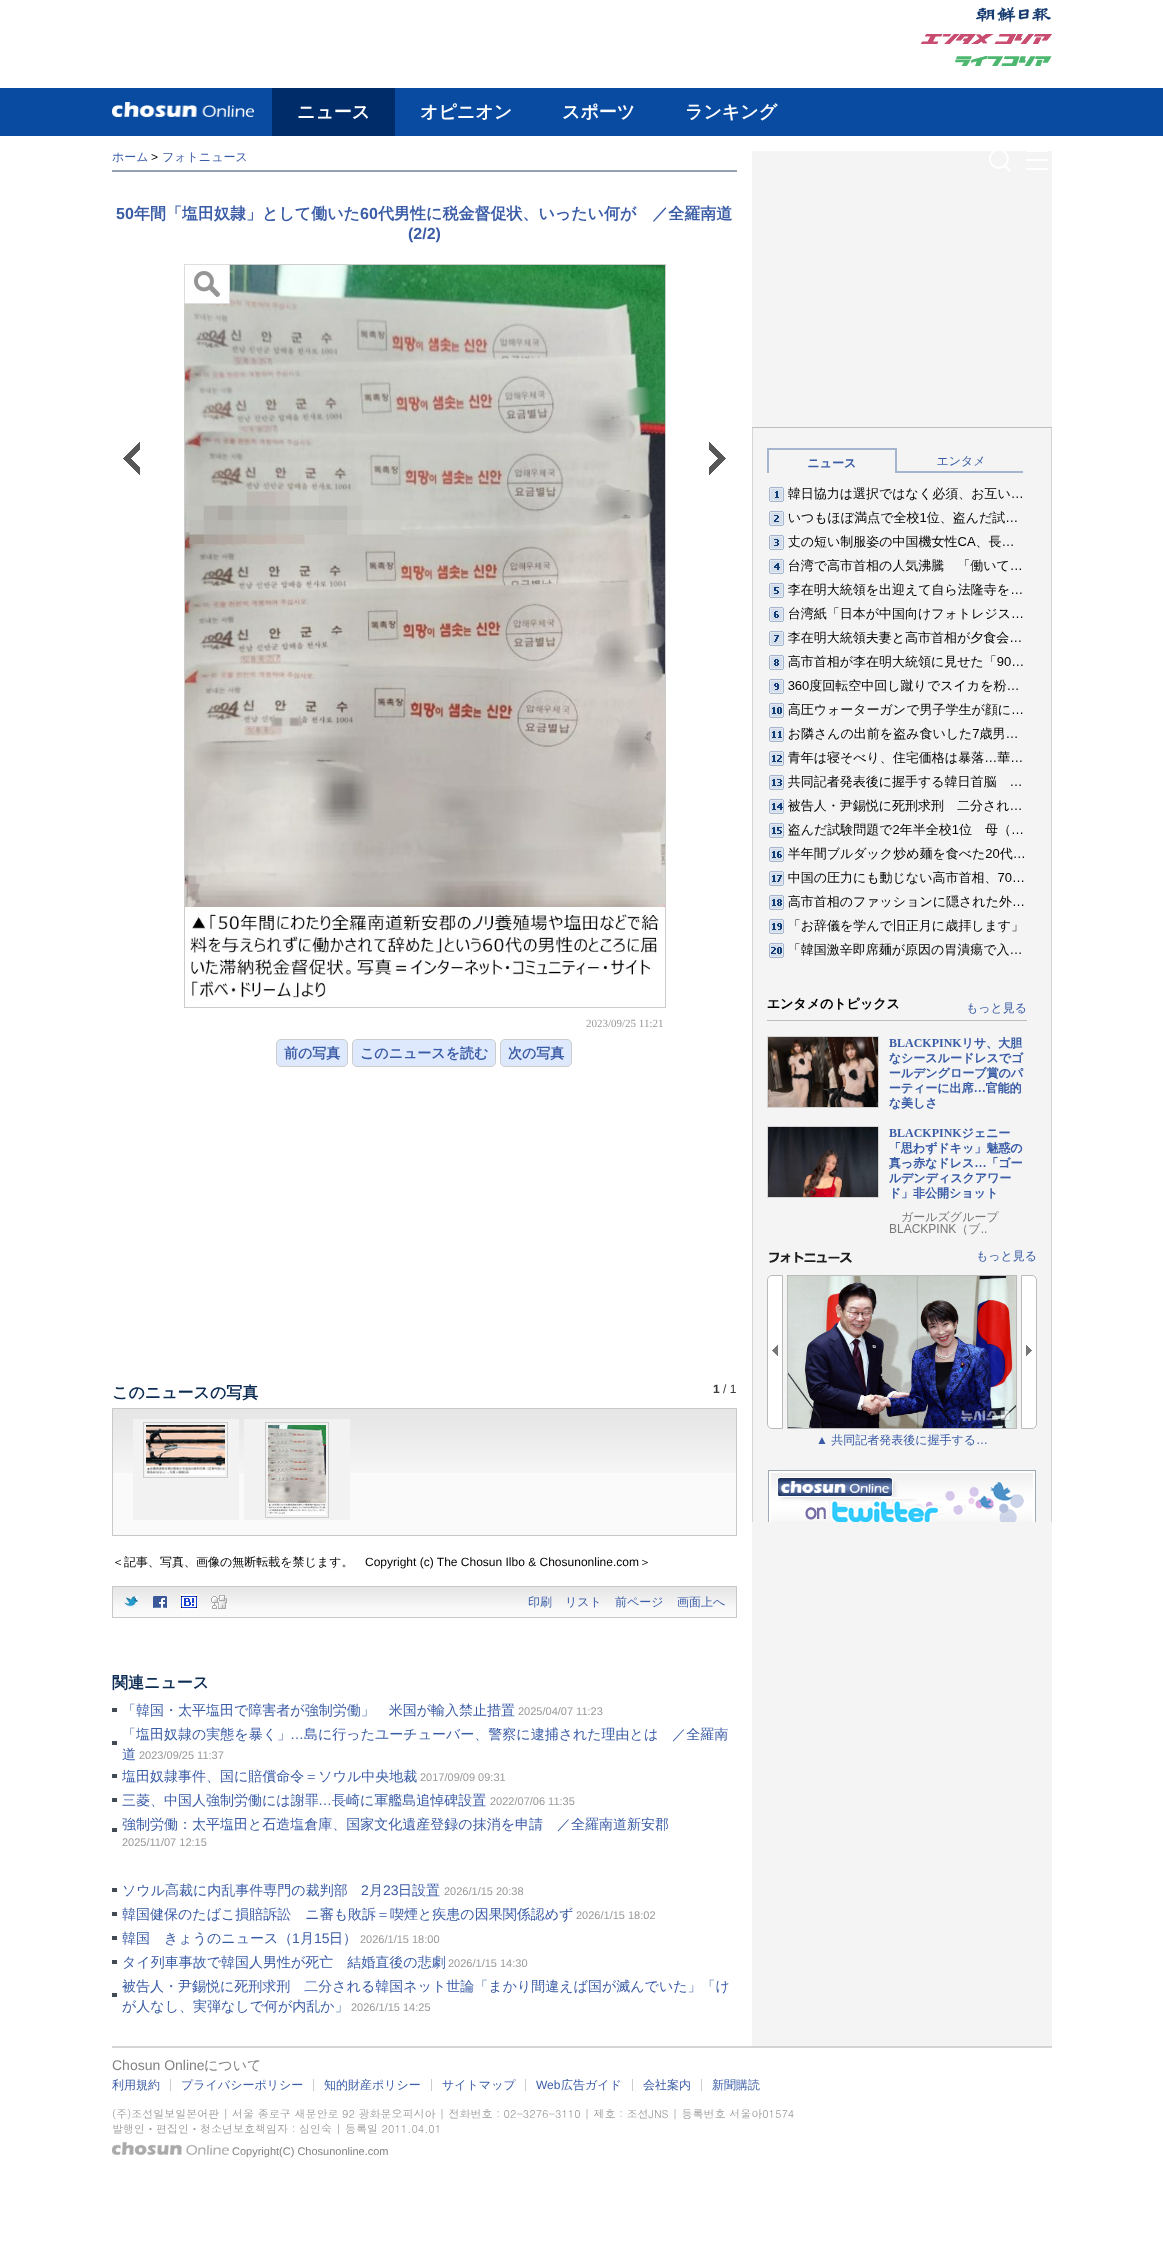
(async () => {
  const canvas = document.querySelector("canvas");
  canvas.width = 1163;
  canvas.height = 2254;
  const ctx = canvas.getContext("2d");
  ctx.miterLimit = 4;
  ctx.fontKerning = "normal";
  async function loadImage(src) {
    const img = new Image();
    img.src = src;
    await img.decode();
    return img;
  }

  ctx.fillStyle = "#ffffff";
  ctx.fillRect(0, 0, 1163, 2254);
  ctx.drawImage(await loadImage("img/1.png"), 976, 7, 75, 16);
  ctx.drawImage(await loadImage("img/2.png"), 921, 34, 131, 10);
  ctx.drawImage(await loadImage("img/3.png"), 955, 56, 97, 10);
  ctx.fillStyle = "#084ba0";
  ctx.fillRect(0, 88, 1163, 48);
  ctx.drawImage(await loadImage("img/4.png"), 112, 102, 142, 15);
  ctx.fillStyle = "#002c69";
  ctx.fillRect(272, 88, 123, 48);
  ctx.fillStyle = "#f4f4f4";
  ctx.fillRect(752, 151, 300, 1895);
  ctx.drawImage(await loadImage("img/5.png"), 989, 151, 22, 21);
  ctx.drawImage(await loadImage("img/6.png"), 1026, 151, 22, 19);
  ctx.fillStyle = "#95a1af";
  ctx.fillRect(112, 170, 625, 2);
  ctx.strokeStyle = "#cccccc";
  ctx.strokeRect(184.5, 264.5, 481, 743);
  ctx.drawImage(await loadImage("img/8.png"), 185, 265, 480, 736);
  ctx.drawImage(await loadImage("img/7.png"), 184, 264, 46, 40);
  ctx.drawImage(await loadImage("img/9.png"), 123, 442, 17, 33);
  ctx.drawImage(await loadImage("img/10.png"), 709, 442, 17, 33);
  ctx.fillStyle = "#dfe9fd";
  ctx.beginPath();
  ctx.roundRect(276.5, 1039.5, 71, 27, 4.5);
  ctx.fill();
  ctx.stroke();
  ctx.beginPath();
  ctx.roundRect(352.5, 1039.5, 143, 27, 4.5);
  ctx.fill();
  ctx.stroke();
  ctx.beginPath();
  ctx.roundRect(500.5, 1039.5, 71, 27, 4.5);
  ctx.fill();
  ctx.stroke();
  ctx.fillStyle = "#fafafa";
  ctx.fillRect(113, 1473, 623, 62);
  ctx.drawImage(await loadImage("img/11.png"), 113, 1409, 623, 64);
  ctx.strokeStyle = "#c8c8c8";
  ctx.strokeRect(112.5, 1408.5, 624, 127);
  ctx.fillStyle = "#f2f2f2";
  ctx.fillRect(133, 1419, 106, 101);
  ctx.strokeStyle = "#cccccc";
  ctx.strokeRect(143.5, 1422.5, 84, 55);
  ctx.drawImage(await loadImage("img/12.png"), 146, 1425, 79, 50);
  ctx.fillRect(244, 1419, 106, 101);
  ctx.strokeRect(265.5, 1422.5, 63, 95);
  ctx.drawImage(await loadImage("img/13.png"), 268, 1425, 58, 90);
  ctx.drawImage(await loadImage("img/14.png"), 113, 1587, 623, 30);
  ctx.strokeStyle = "#c8c8c8";
  ctx.strokeRect(112.5, 1586.5, 624, 31);
  ctx.drawImage(await loadImage("img/15.png"), 124, 1596, 14, 11);
  ctx.drawImage(await loadImage("img/16.png"), 153, 1596, 14, 12);
  ctx.drawImage(await loadImage("img/17.png"), 181, 1594, 16, 16);
  ctx.drawImage(await loadImage("img/18.png"), 211, 1595, 16, 14);
  for (const [x, y, w, h, color] of [
    [112, 1708, 5, 4, "#434b55"],
    [112, 1741, 5, 4, "#434b55"],
    [112, 1774, 5, 4, "#434b55"],
    [112, 1798, 5, 4, "#434b55"],
    [112, 1828, 5, 4, "#434b55"],
    [112, 1888, 5, 4, "#434b55"],
    [112, 1912, 5, 4, "#434b55"],
    [112, 1936, 5, 4, "#434b55"],
    [112, 1960, 5, 4, "#434b55"],
    [112, 1993, 5, 4, "#434b55"],
  ]) {
    ctx.fillStyle = color;
    ctx.fillRect(x, y, w, h);
  }
  ctx.drawImage(await loadImage("img/19.png"), 752, 427, 300, 1095);
  for (const [x, y, w, h, color] of [
    [112, 2046, 940, 2, "#d4d4d4"],
    [170, 2079, 1, 12, "#cccccc"],
    [313, 2079, 1, 12, "#cccccc"],
    [431, 2079, 1, 12, "#cccccc"],
    [525, 2079, 1, 12, "#cccccc"],
    [632, 2079, 1, 12, "#cccccc"],
    [701, 2079, 1, 12, "#cccccc"],
  ]) {
    ctx.fillStyle = color;
    ctx.fillRect(x, y, w, h);
  }
  ctx.drawImage(await loadImage("img/20.png"), 112, 2142, 117, 13);
  ctx.font = "bold 18px WenQuanYi Zen Hei";
  ctx.fillStyle = "#ffffff";
  for (const [text, x, y] of [
    ["ニュース", 297, 118],
    ["オピニオン", 420, 118],
    ["スポーツ", 562, 118],
    ["ランキング", 685, 118],
  ]) {
    ctx.fillText(text, x, y);
  }
  ctx.font = "500 12px WenQuanYi Zen Hei";
  ctx.fillStyle = "#3a5ca6";
  ctx.fillText("ホーム", 112, 161);
  ctx.font = "12px Liberation Sans";
  ctx.fillStyle = "#000000";
  ctx.fillText(">", 151, 161);
  ctx.font = "500 12px WenQuanYi Zen Hei";
  ctx.fillStyle = "#3a5ca6";
  ctx.fillText("フォトニュース", 162, 161);
  ctx.font = "bold 16px Liberation Sans";
  ctx.fillText("50", 116, 219);
  ctx.font = "bold 16px WenQuanYi Zen Hei";
  ctx.fillText("年間「塩田奴隷」として働いた", 134, 219);
  ctx.font = "bold 16px Liberation Sans";
  ctx.fillText("60", 360, 219);
  ctx.font = "bold 16px WenQuanYi Zen Hei";
  ctx.fillText("代男性に税金督促状、いったい何が　／全羅南道", 378, 219);
  ctx.font = "bold 16px Liberation Sans";
  ctx.fillText("(2/2)", 408, 239);
  ctx.font = "11px Liberation Serif";
  ctx.fillStyle = "#999999";
  ctx.fillText("2023/09/25 11:21", 586, 1027);
  ctx.font = "bold 14px WenQuanYi Zen Hei";
  ctx.fillStyle = "#3a5ca6";
  for (const [text, x, y] of [
    ["前の写真", 284, 1058],
    ["このニュースを読む", 360, 1058],
    ["次の写真", 508, 1058],
  ]) {
    ctx.fillText(text, x, y);
  }
  ctx.font = "bold 16px WenQuanYi Zen Hei";
  ctx.fillStyle = "#0c2c54";
  ctx.fillText("このニュースの写真", 112, 1398);
  ctx.font = "bold 12px Liberation Sans";
  ctx.fillStyle = "#3c3c3c";
  ctx.fillText("1", 713, 1393);
  ctx.font = "12px Liberation Sans";
  ctx.fillText("/ 1", 723, 1393);
  ctx.font = "500 12px WenQuanYi Zen Hei";
  ctx.fillStyle = "#000000";
  ctx.fillText("＜記事、写真、画像の無断転載を禁じます。", 112, 1566);
  ctx.font = "12px Liberation Sans";
  ctx.fillText("Copyright (c) The Chosun Ilbo & Chosunonline.com", 365, 1566);
  ctx.font = "500 12px WenQuanYi Zen Hei";
  ctx.fillText("＞", 639, 1566);
  ctx.fillStyle = "#3a5ca6";
  for (const [text, x, y] of [
    ["印刷", 528, 1606],
    ["リスト", 565, 1606],
    ["前ページ", 615, 1606],
    ["画面上へ", 677, 1606],
  ]) {
    ctx.fillText(text, x, y);
  }
  ctx.font = "bold 16px WenQuanYi Zen Hei";
  ctx.fillStyle = "#0c2c54";
  ctx.fillText("関連ニュース", 112, 1688);
  ctx.font = "500 14px WenQuanYi Zen Hei";
  ctx.fillStyle = "#3a5ca6";
  ctx.fillText("「韓国・太平塩田で障害者が強制労働」　米国が輸入禁止措置", 122, 1715);
  ctx.font = "11px Liberation Sans";
  ctx.fillStyle = "#999999";
  ctx.fillText("2025/04/07 11:23", 518, 1715);
  ctx.font = "500 14px WenQuanYi Zen Hei";
  ctx.fillStyle = "#3a5ca6";
  ctx.fillText("「塩田奴隷の実態を暴く」", 122, 1739);
  ctx.font = "14px Liberation Sans";
  ctx.fillText("…", 290, 1739);
  ctx.font = "500 14px WenQuanYi Zen Hei";
  ctx.fillText("島に行ったユーチューバー、警察に逮捕された理由とは　／全羅南", 304, 1739);
  ctx.fillText("道", 122, 1759);
  ctx.font = "11px Liberation Sans";
  ctx.fillStyle = "#999999";
  ctx.fillText("2023/09/25 11:37", 139, 1759);
  ctx.font = "500 14px WenQuanYi Zen Hei";
  ctx.fillStyle = "#3a5ca6";
  ctx.fillText("塩田奴隷事件、国に賠償命令＝ソウル中央地裁", 122, 1781);
  ctx.font = "11px Liberation Sans";
  ctx.fillStyle = "#999999";
  ctx.fillText("2017/09/09 09:31", 420, 1781);
  ctx.font = "500 14px WenQuanYi Zen Hei";
  ctx.fillStyle = "#3a5ca6";
  ctx.fillText("三菱、中国人強制労働には謝罪", 122, 1805);
  ctx.font = "14px Liberation Sans";
  ctx.fillText("…", 318, 1805);
  ctx.font = "500 14px WenQuanYi Zen Hei";
  ctx.fillText("長崎に軍艦島追悼碑設置", 332, 1805);
  ctx.font = "11px Liberation Sans";
  ctx.fillStyle = "#999999";
  ctx.fillText("2022/07/06 11:35", 490, 1805);
  ctx.font = "500 14px WenQuanYi Zen Hei";
  ctx.fillStyle = "#3a5ca6";
  ctx.fillText("強制労働：太平塩田と石造塩倉庫、国家文化遺産登録の抹消を申請　／全羅南道新安郡", 122, 1829);
  ctx.font = "11px Liberation Sans";
  ctx.fillStyle = "#999999";
  ctx.fillText("2025/11/07 12:15", 122, 1846);
  ctx.font = "500 14px WenQuanYi Zen Hei";
  ctx.fillStyle = "#3a5ca6";
  ctx.fillText("ソウル高裁に内乱事件専門の裁判部", 122, 1895);
  ctx.font = "14px Liberation Sans";
  ctx.fillText("2", 361, 1895);
  ctx.font = "500 14px WenQuanYi Zen Hei";
  ctx.fillText("月", 369, 1895);
  ctx.font = "14px Liberation Sans";
  ctx.fillText("23", 383, 1895);
  ctx.font = "500 14px WenQuanYi Zen Hei";
  ctx.fillText("日設置", 398, 1895);
  ctx.font = "11px Liberation Sans";
  ctx.fillStyle = "#999999";
  ctx.fillText("2026/1/15 20:38", 444, 1895);
  ctx.font = "500 14px WenQuanYi Zen Hei";
  ctx.fillStyle = "#3a5ca6";
  ctx.fillText("韓国健保のたばこ損賠訴訟　ニ審も敗訴＝喫煙と疾患の因果関係認めず", 122, 1919);
  ctx.font = "11px Liberation Sans";
  ctx.fillStyle = "#999999";
  ctx.fillText("2026/1/15 18:02", 576, 1919);
  ctx.font = "500 14px WenQuanYi Zen Hei";
  ctx.fillStyle = "#3a5ca6";
  ctx.fillText("韓国　きょうのニュース（", 122, 1943);
  ctx.font = "14px Liberation Sans";
  ctx.fillText("1", 292, 1943);
  ctx.font = "500 14px WenQuanYi Zen Hei";
  ctx.fillText("月", 300, 1943);
  ctx.font = "14px Liberation Sans";
  ctx.fillText("15", 314, 1943);
  ctx.font = "500 14px WenQuanYi Zen Hei";
  ctx.fillText("日）", 329, 1943);
  ctx.font = "11px Liberation Sans";
  ctx.fillStyle = "#999999";
  ctx.fillText("2026/1/15 18:00", 360, 1943);
  ctx.font = "500 14px WenQuanYi Zen Hei";
  ctx.fillStyle = "#3a5ca6";
  ctx.fillText("タイ列車事故で韓国人男性が死亡　結婚直後の悲劇", 122, 1967);
  ctx.font = "11px Liberation Sans";
  ctx.fillStyle = "#999999";
  ctx.fillText("2026/1/15 14:30", 448, 1967);
  ctx.font = "500 14px WenQuanYi Zen Hei";
  ctx.fillStyle = "#3a5ca6";
  ctx.fillText("被告人・尹錫悦に死刑求刑　二分される韓国ネット世論「まかり間違えば国が滅んでいた」「け", 122, 1991);
  ctx.fillText("が人なし、実弾なしで何が内乱か」", 122, 2011);
  ctx.font = "11px Liberation Sans";
  ctx.fillStyle = "#999999";
  ctx.fillText("2026/1/15 14:25", 351, 2011);
  ctx.font = "14px Liberation Sans";
  ctx.fillStyle = "#828282";
  ctx.fillText("Chosun Online", 112, 2070);
  ctx.font = "500 14px WenQuanYi Zen Hei";
  ctx.fillText("について", 204, 2070);
  ctx.font = "500 12px WenQuanYi Zen Hei";
  ctx.fillStyle = "#3a5ca6";
  for (const [text, x, y] of [
    ["利用規約", 112, 2089],
    ["プライバシーポリシー", 181, 2089],
    ["知的財産ポリシー", 324, 2089],
    ["サイトマップ", 442, 2089],
  ]) {
    ctx.fillText(text, x, y);
  }
  ctx.font = "12px Liberation Sans";
  ctx.fillText("Web", 536, 2089);
  ctx.font = "500 12px WenQuanYi Zen Hei";
  for (const [text, x, y] of [
    ["広告ガイド", 561, 2089],
    ["会社案内", 643, 2089],
    ["新聞購読", 712, 2089],
  ]) {
    ctx.fillText(text, x, y);
  }
  ctx.font = "11px Dotum";
  ctx.fillStyle = "#999999";
  ctx.fillText("(주)조선일보일본어판 | 서울 종로구 새문안로 92 광화문오피시아 | 전화번호 : 02-3276-3110 | 제호 : 조선JNS | 등록번호 서울아01574", 112, 2118);
  ctx.fillText("발행인ㆍ편집인ㆍ청소년보호책임자 : 심인숙 | 등록일 2011.04.01", 112, 2133);
  ctx.font = "11px Liberation Sans";
  ctx.fillStyle = "#828282";
  ctx.fillText("Copyright(C) Chosunonline.com", 232, 2155);
})();
